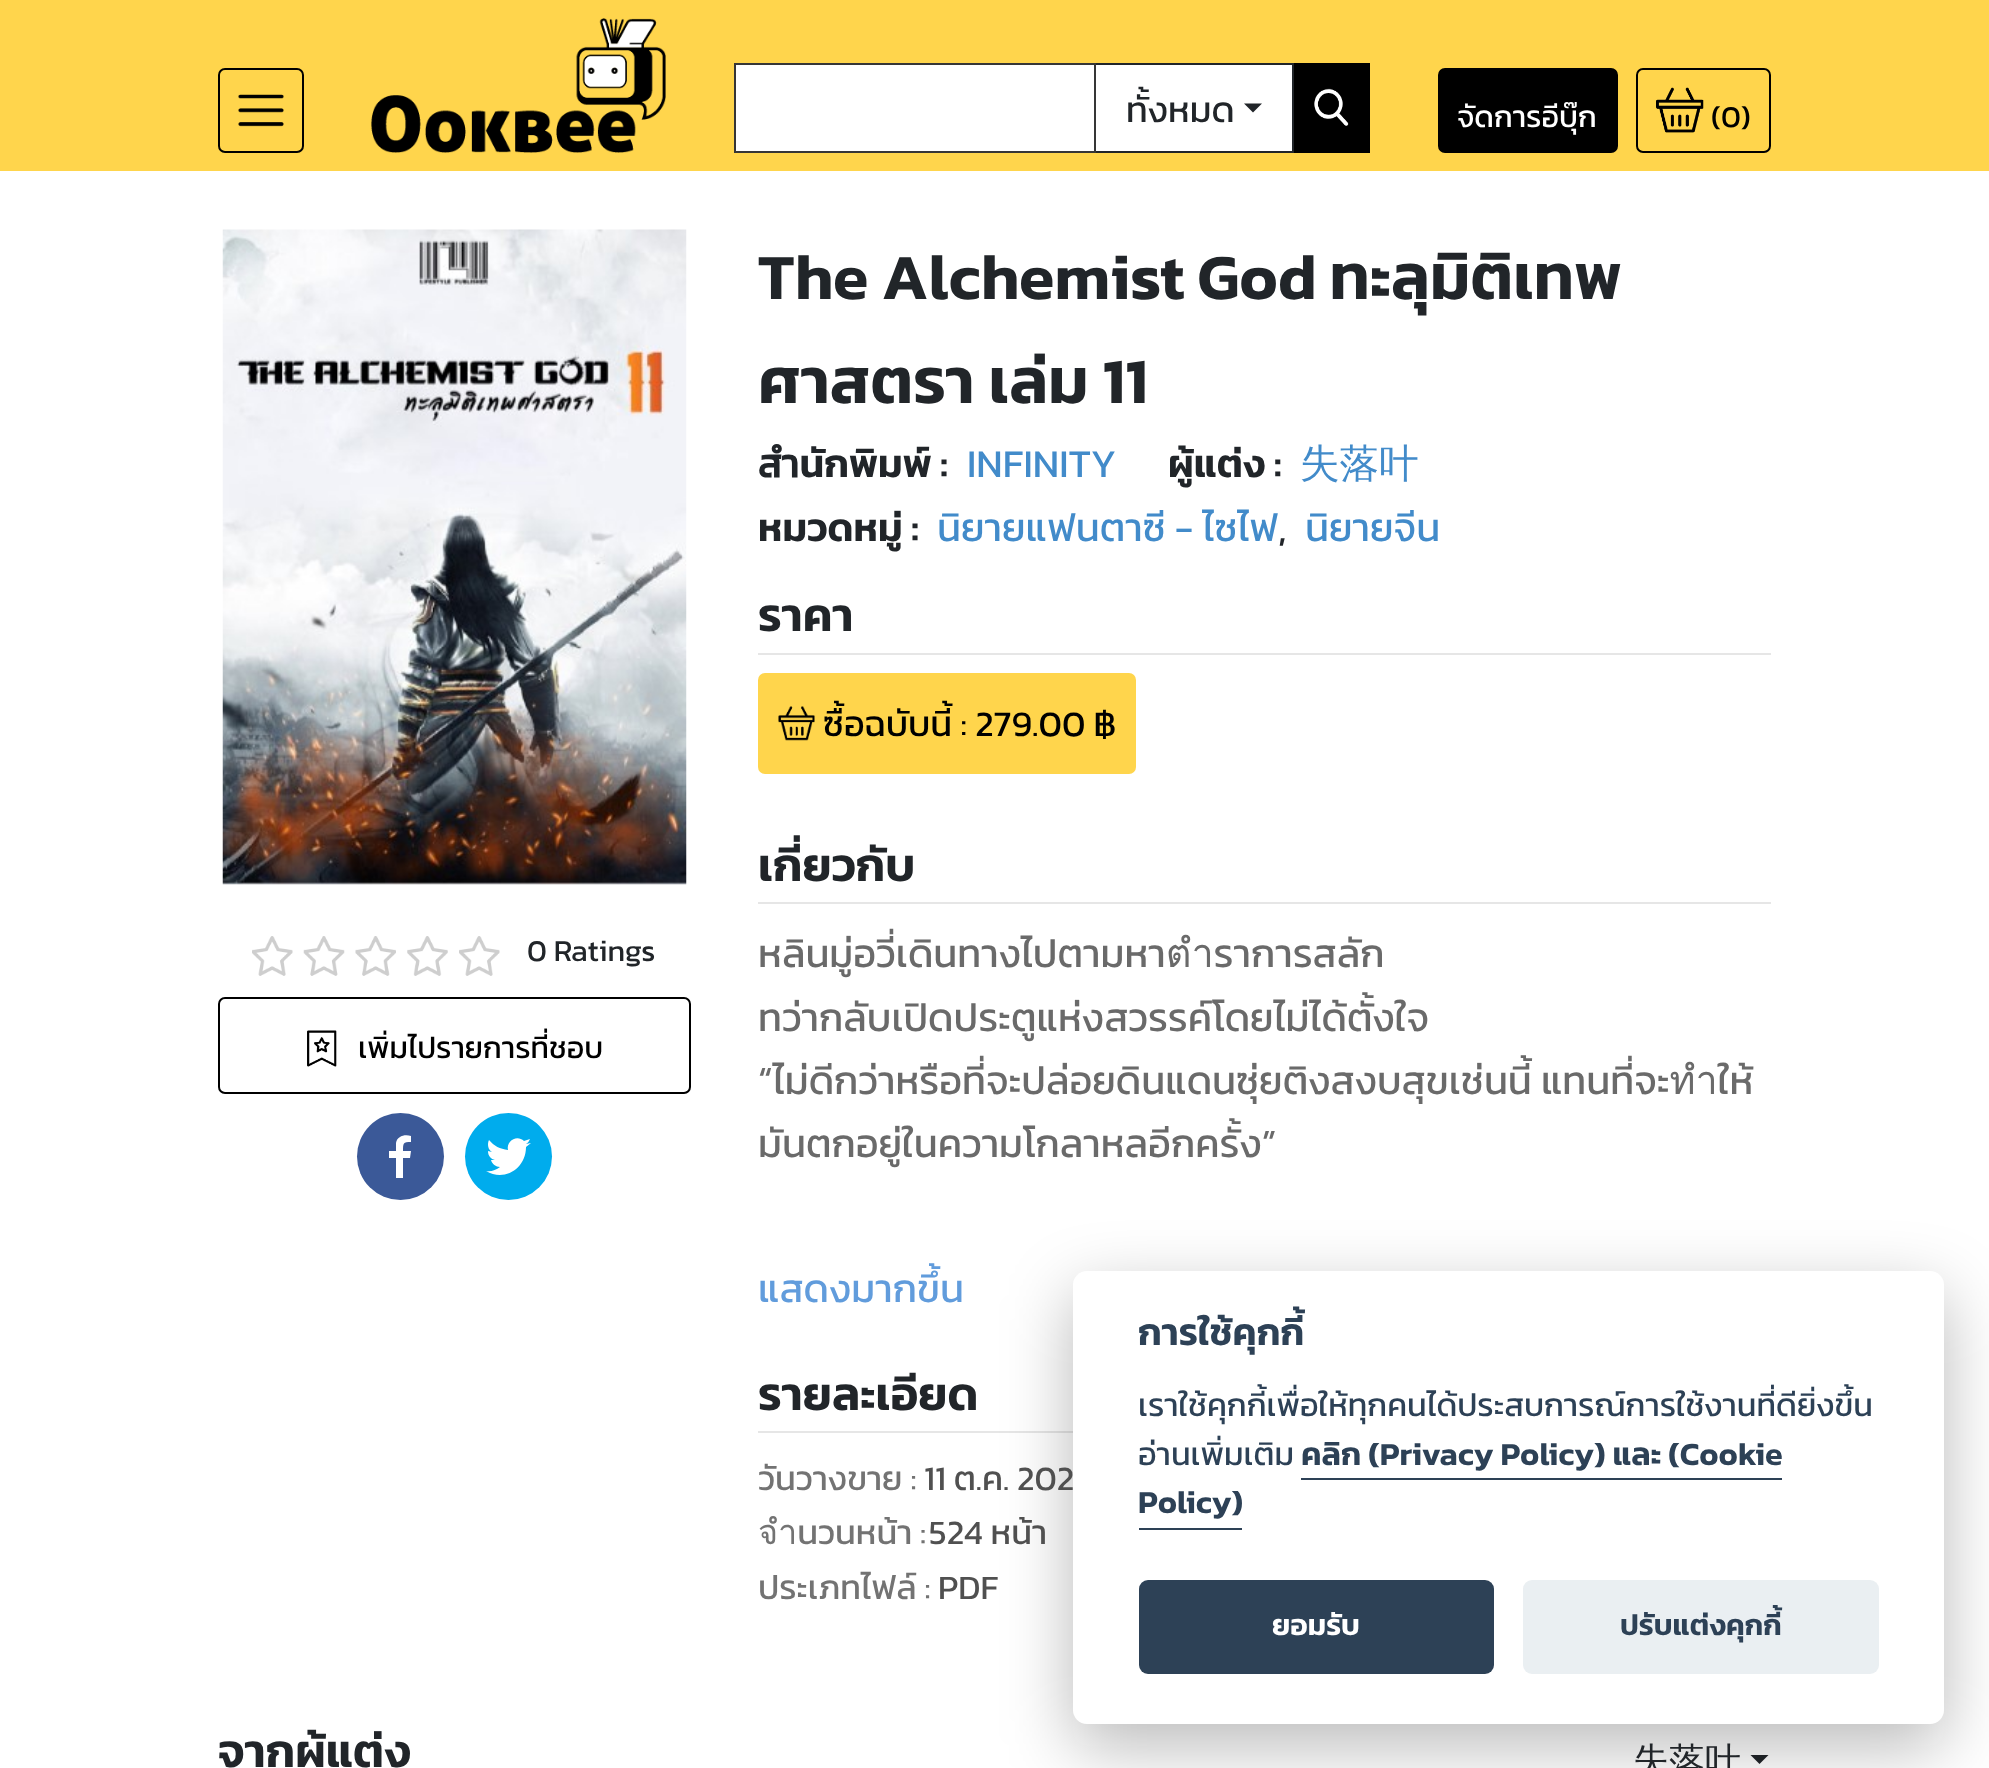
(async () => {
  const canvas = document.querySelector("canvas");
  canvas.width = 1989;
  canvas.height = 1768;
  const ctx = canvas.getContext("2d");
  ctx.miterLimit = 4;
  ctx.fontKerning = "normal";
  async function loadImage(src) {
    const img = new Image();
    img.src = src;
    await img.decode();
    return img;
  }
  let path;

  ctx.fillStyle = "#ffffff";
  ctx.fillRect(0, 0, 1989, 1768);
  ctx.fillStyle = "#ffd54c";
  ctx.fillRect(0, 0, 1989, 171);
  ctx.beginPath();
  ctx.roundRect(219, 69, 84, 83, 6);
  ctx.strokeStyle = "#000000";
  ctx.lineWidth = 2;
  ctx.stroke();
  ctx.drawImage(await loadImage("img/1.png"), 238, 94, 46, 33);
  ctx.drawImage(await loadImage("img/2.png"), 371, 18, 295, 135);
  ctx.fillStyle = "#ffffff";
  ctx.beginPath();
  ctx.rect(735, 64, 360, 88);
  ctx.fill();
  ctx.strokeStyle = "#363636";
  ctx.stroke();
  for (const [x, y, w, h, color] of [
    [1096, 65, 196, 86, "#ffffff"],
    [1096, 63, 198, 2, "#212529"],
    [1292, 63, 2, 90, "#212529"],
    [1096, 151, 198, 2, "#212529"],
  ]) {
    ctx.fillStyle = color;
    ctx.fillRect(x, y, w, h);
  }
  path = new Path2D("M1244 103.5H1262L1253 112.5Z");
  ctx.fill(path);
  ctx.fillStyle = "#000000";
  ctx.fillRect(1294, 63, 76, 90);
  ctx.drawImage(await loadImage("img/3.png"), 1314, 88, 35, 38);
  ctx.beginPath();
  ctx.roundRect(1439, 69, 178, 83, 6);
  ctx.fill();
  ctx.strokeStyle = "#000000";
  ctx.stroke();
  ctx.beginPath();
  ctx.roundRect(1637, 69, 133, 83, 6);
  ctx.stroke();
  ctx.drawImage(await loadImage("img/4.png"), 1656, 87, 48, 46);
  ctx.drawImage(await loadImage("img/5.png"), 222, 229, 465, 656);
  ctx.drawImage(await loadImage("img/6.png"), 252, 936, 41, 40);
  ctx.drawImage(await loadImage("img/7.png"), 303, 936, 42, 40);
  ctx.drawImage(await loadImage("img/8.png"), 355, 936, 41, 40);
  ctx.drawImage(await loadImage("img/9.png"), 407, 936, 41, 40);
  ctx.drawImage(await loadImage("img/6.png"), 459, 936, 41, 40);
  ctx.beginPath();
  ctx.roundRect(219, 998, 471, 95, 6);
  ctx.stroke();
  ctx.drawImage(await loadImage("img/10.png"), 307, 1030, 30, 37);
  ctx.fillStyle = "#3b5998";
  ctx.beginPath();
  ctx.arc(400.5, 1156.5, 43.5, 0, Math.PI * 2);
  ctx.fill();
  ctx.fillStyle = "#ffffff";
  path = new Path2D("M403 1178V1158H410L411 1151H403C403 1143 403 1142 411 1142V1136C405 1134 397 1136 396 1143V1151H389V1158H396V1178Z");
  ctx.fill(path);
  ctx.fillStyle = "#00aced";
  ctx.beginPath();
  ctx.arc(508.5, 1156.5, 43.5, 0, Math.PI * 2);
  ctx.fill();
  ctx.fillStyle = "#ffffff";
  path = new Path2D("M531 1143L526 1144C528 1143 529 1141 530 1139L524 1141C517 1134 506 1141 508 1150C500 1149 494 1146 489 1140C487 1144 488 1150 492 1152L488 1151C488 1156 491 1159 495 1160H491C492 1164 496 1167 500 1167C496 1170 491 1172 486 1171C504 1182 526 1169 526 1147Z");
  ctx.fill(path);
  ctx.fillStyle = "#e6e6e6";
  ctx.fillRect(758, 653, 1013, 2);
  ctx.fillStyle = "#ffd54c";
  ctx.beginPath();
  ctx.roundRect(758, 673, 378, 101, 7);
  ctx.fill();
  ctx.drawImage(await loadImage("img/11.png"), 778, 706, 37, 35);
  ctx.fillStyle = "#e6e6e6";
  ctx.fillRect(758, 902, 1013, 2);
  ctx.fillRect(758, 1431, 315, 2);
  ctx.fillStyle = "#212529";
  path = new Path2D("M1750.5 1755H1768.5L1759.5 1764Z");
  ctx.fill(path);
  ctx.fillStyle = "rgba(2, 2, 3, 0.28)";
  ctx.filter = "blur(34px)";
  ctx.beginPath();
  ctx.roundRect(1073, 1294, 871, 452, 14);
  ctx.fill();
  ctx.filter = "none";
  ctx.fillStyle = "#ffffff";
  ctx.beginPath();
  ctx.roundRect(1073, 1271, 871, 453, 14);
  ctx.fill();
  ctx.fillStyle = "#2d4156";
  ctx.fillRect(1301, 1478, 481, 2);
  ctx.fillRect(1139, 1528, 103, 2);
  ctx.beginPath();
  ctx.roundRect(1139, 1580, 355, 94, 9);
  ctx.fill();
  ctx.fillStyle = "#eaeff2";
  ctx.beginPath();
  ctx.roundRect(1523, 1580, 356, 94, 9);
  ctx.fill();
  ctx.font = "36px Kanit";
  ctx.fillStyle = "#212529";
  ctx.fillText("ทั้งหมด", 1126, 122);
  ctx.font = "30.5px Kanit";
  ctx.fillStyle = "#ffffff";
  ctx.fillText("จัดการอีบุ๊ก", 1457, 127);
  ctx.fillStyle = "#000000";
  ctx.fillText("(0)", 1711, 127);
  ctx.fillStyle = "#212529";
  ctx.fillText("0 Ratings", 527, 961);
  ctx.fillStyle = "#000000";
  ctx.fillText("เพิ่มไปรายการที่ชอบ", 358, 1058);
  ctx.wordSpacing = "-1px";
  ctx.font = "600 64.75px Kanit";
  ctx.fillStyle = "#212529";
  ctx.fillText("The Alchemist God ทะลุมิติเทพ", 758, 299);
  ctx.wordSpacing = "0px";
  ctx.fillText("ศาสตรา เล่ม 11", 758, 403);
  ctx.font = "600 39.6px Kanit";
  ctx.fillText("สำนักพิมพ์ :", 758, 477);
  ctx.font = "39.6px Kanit";
  ctx.fillStyle = "#428bca";
  ctx.fillText("INFINITY", 967, 477);
  ctx.font = "600 39.6px Kanit";
  ctx.fillStyle = "#212529";
  ctx.fillText("ผู้แต่ง :", 1168, 477);
  ctx.font = "500 39.6px WenQuanYi Zen Hei";
  ctx.fillStyle = "#428bca";
  ctx.fillText("失落叶", 1300, 477);
  ctx.font = "600 39.6px Kanit";
  ctx.fillStyle = "#212529";
  ctx.fillText("หมวดหมู่ :", 758, 541);
  ctx.font = "39.6px Kanit";
  ctx.fillStyle = "#428bca";
  ctx.fillText("นิยายแฟนตาซี - ไซไฟ", 937, 541);
  ctx.fillStyle = "#212529";
  ctx.fillText(",", 1278, 541);
  ctx.fillStyle = "#428bca";
  ctx.fillText("นิยายจีน", 1305, 541);
  ctx.font = "600 47px Kanit";
  ctx.fillStyle = "#212529";
  ctx.fillText("ราคา", 758, 631);
  ctx.font = "36px Kanit";
  ctx.fillStyle = "#000000";
  ctx.fillText("ซื้อฉบับนี้ : 279.00 ฿", 823, 736);
  ctx.font = "600 47px Kanit";
  ctx.fillStyle = "#212529";
  ctx.fillText("เกี่ยวกับ", 758, 881);
  ctx.font = "39.6px Kanit";
  ctx.fillStyle = "#6a6a6a";
  for (const [text, x, y] of [
    ["หลินมู่อวี่เดินทางไปตามหาตำราการสลัก", 758, 967],
    ["ทว่ากลับเปิดประตูแห่งสวรรค์โดยไม่ได้ตั้งใจ", 758, 1031],
    ["“ไม่ดีกว่าหรือที่จะปล่อยดินแดนซุ่ยติงสงบสุขเช่นนี้ แทนที่จะทำให้", 758, 1094],
  ]) {
    ctx.fillText(text, x, y);
  }
  ctx.save();
  ctx.beginPath();
  ctx.rect(758, 923, 1013, 317);
  ctx.clip();
  ctx.fillText("มันตกอยู่ในความโกลาหลอีกครั้ง”", 758, 1157);
  ctx.restore();
  ctx.fillStyle = "#619cdc";
  ctx.fillText("แสดงมากขึ้น", 758, 1302);
  ctx.font = "600 47px Kanit";
  ctx.fillStyle = "#212529";
  ctx.fillText("รายละเอียด", 758, 1410);
  ctx.font = "34.25px Kanit";
  ctx.fillStyle = "#737373";
  ctx.fillText("วันวางขาย :", 758, 1490);
  ctx.fillStyle = "#505050";
  ctx.fillText("11 ต.ค. 202", 924, 1490);
  ctx.fillStyle = "#737373";
  ctx.fillText("จำนวนหน้า :", 758, 1544);
  ctx.fillStyle = "#505050";
  ctx.fillText("524 หน้า", 929, 1544);
  ctx.fillStyle = "#737373";
  ctx.fillText("ประเภทไฟล์ :", 758, 1599);
  ctx.fillStyle = "#505050";
  ctx.fillText("PDF", 938, 1599);
  ctx.font = "600 47px Kanit";
  ctx.fillStyle = "#212529";
  ctx.fillText("จากผู้แต่ง", 218, 1767);
  ctx.font = "500 36px WenQuanYi Zen Hei";
  ctx.fillText("失落叶", 1633, 1773);
  ctx.font = "600 38px Kanit";
  ctx.fillStyle = "#2d4156";
  ctx.fillText("การใช้คุกกี้", 1138, 1345);
  ctx.font = "32.4px Kanit";
  ctx.fillText("เราใช้คุกกี้เพื่อให้ทุกคนได้ประสบการณ์การใช้งานที่ดียิ่งขึ้น", 1138, 1416);
  ctx.fillText("อ่านเพิ่มเติม", 1138, 1465);
  ctx.font = "600 32.4px Kanit";
  ctx.fillText("คลิก (Privacy Policy) และ (Cookie", 1301, 1465);
  ctx.fillText("Policy)", 1138, 1513);
  ctx.font = "600 29.5px Kanit";
  ctx.fillStyle = "#ffffff";
  ctx.fillText("ยอมรับ", 1272, 1635);
  ctx.fillStyle = "#2d4156";
  ctx.fillText("ปรับแต่งคุกกี้", 1620, 1635);
})();
